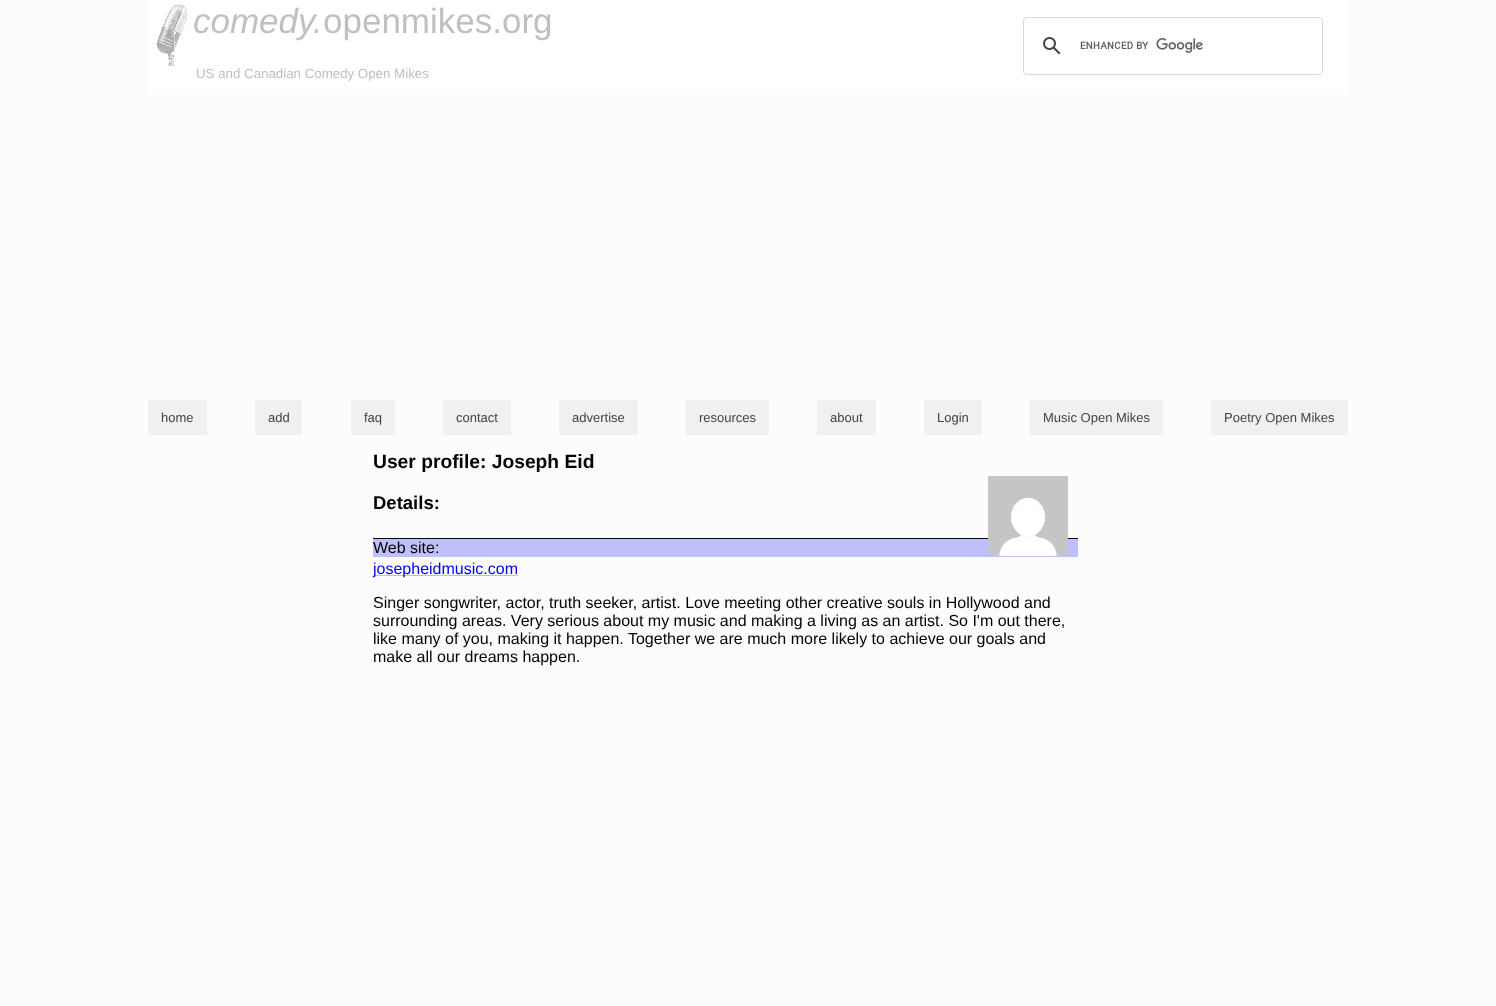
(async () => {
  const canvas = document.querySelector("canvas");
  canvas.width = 1496;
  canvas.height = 1006;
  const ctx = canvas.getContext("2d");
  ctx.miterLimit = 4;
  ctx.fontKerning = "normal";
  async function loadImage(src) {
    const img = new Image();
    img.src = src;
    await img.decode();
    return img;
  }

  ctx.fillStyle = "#fcfcfc";
  ctx.fillRect(0, 0, 1496, 1006);
  ctx.fillStyle = "#ffffff";
  ctx.fillRect(148, 0, 1200, 94);
  ctx.drawImage(await loadImage("img/1.png"), 156, 4, 32, 62);
  ctx.beginPath();
  ctx.roundRect(1023.5, 17.5, 299, 57, 3.5);
  ctx.strokeStyle = "#d9d9d9";
  ctx.stroke();
  ctx.drawImage(await loadImage("img/2.png"), 1043, 37, 18, 18);
  ctx.drawImage(await loadImage("img/3.png"), 1080, 38, 123, 15);
  for (const [x, y, w, h, color] of [
    [148, 400, 59, 35, "#f0f0f0"],
    [255, 400, 47, 35, "#f0f0f0"],
    [351, 400, 44, 35, "#f0f0f0"],
    [443, 400, 68, 35, "#f0f0f0"],
    [559, 400, 79, 35, "#f0f0f0"],
    [686, 400, 83, 35, "#f0f0f0"],
    [817, 400, 59, 35, "#f0f0f0"],
    [924, 400, 58, 35, "#f0f0f0"],
    [1030, 400, 133, 35, "#f0f0f0"],
    [1211, 400, 137, 35, "#f0f0f0"],
    [373, 539, 705, 18, "#c0c0ff"],
    [373, 538, 705, 1, "#030303"],
  ]) {
    ctx.fillStyle = color;
    ctx.fillRect(x, y, w, h);
  }
  ctx.drawImage(await loadImage("img/4.png"), 988, 476, 80, 80);
  ctx.fillStyle = "#bbbbff";
  ctx.fillRect(373, 575, 145, 1);
  ctx.font = "italic 35px Liberation Sans";
  ctx.fillStyle = "#c0c0c0";
  ctx.fillText("comedy.", 193, 33);
  ctx.font = "35px Liberation Sans";
  ctx.fillText("openmikes.org", 323, 33);
  ctx.font = "13.3px Liberation Sans";
  ctx.fillText("US and Canadian Comedy Open Mikes", 196, 78);
  ctx.font = "13px Liberation Sans";
  ctx.fillStyle = "#434343";
  for (const [text, x, y] of [
    ["home", 161, 422],
    ["add", 268, 422],
    ["faq", 364, 422],
    ["contact", 456, 422],
    ["advertise", 572, 422],
    ["resources", 699, 422],
    ["about", 830, 422],
    ["Login", 937, 422],
    ["Music Open Mikes", 1043, 422],
    ["Poetry Open Mikes", 1224, 422],
  ]) {
    ctx.fillText(text, x, y);
  }
  ctx.font = "bold 19.25px Liberation Sans";
  ctx.fillStyle = "#030303";
  ctx.fillText("User profile: Joseph Eid", 373, 468);
  ctx.font = "bold 18.5px Liberation Sans";
  ctx.fillText("Details:", 373, 509);
  ctx.font = "16px Liberation Sans";
  ctx.fillText("Web site:", 373, 553);
  ctx.fillStyle = "#0000ee";
  ctx.fillText("josepheidmusic.com", 373, 574);
  ctx.fillStyle = "#030303";
  for (const [text, x, y] of [
    ["Singer songwriter, actor, truth seeker, artist. Love meeting other creative souls in Hollywood and", 373, 608],
    ["surrounding areas. Very serious about my music and making a living as an artist. So I'm out there,", 373, 626],
    ["like many of you, making it happen. Together we are much more likely to achieve our goals and", 373, 644],
    ["make all our dreams happen.", 373, 662],
  ]) {
    ctx.fillText(text, x, y);
  }
})();
